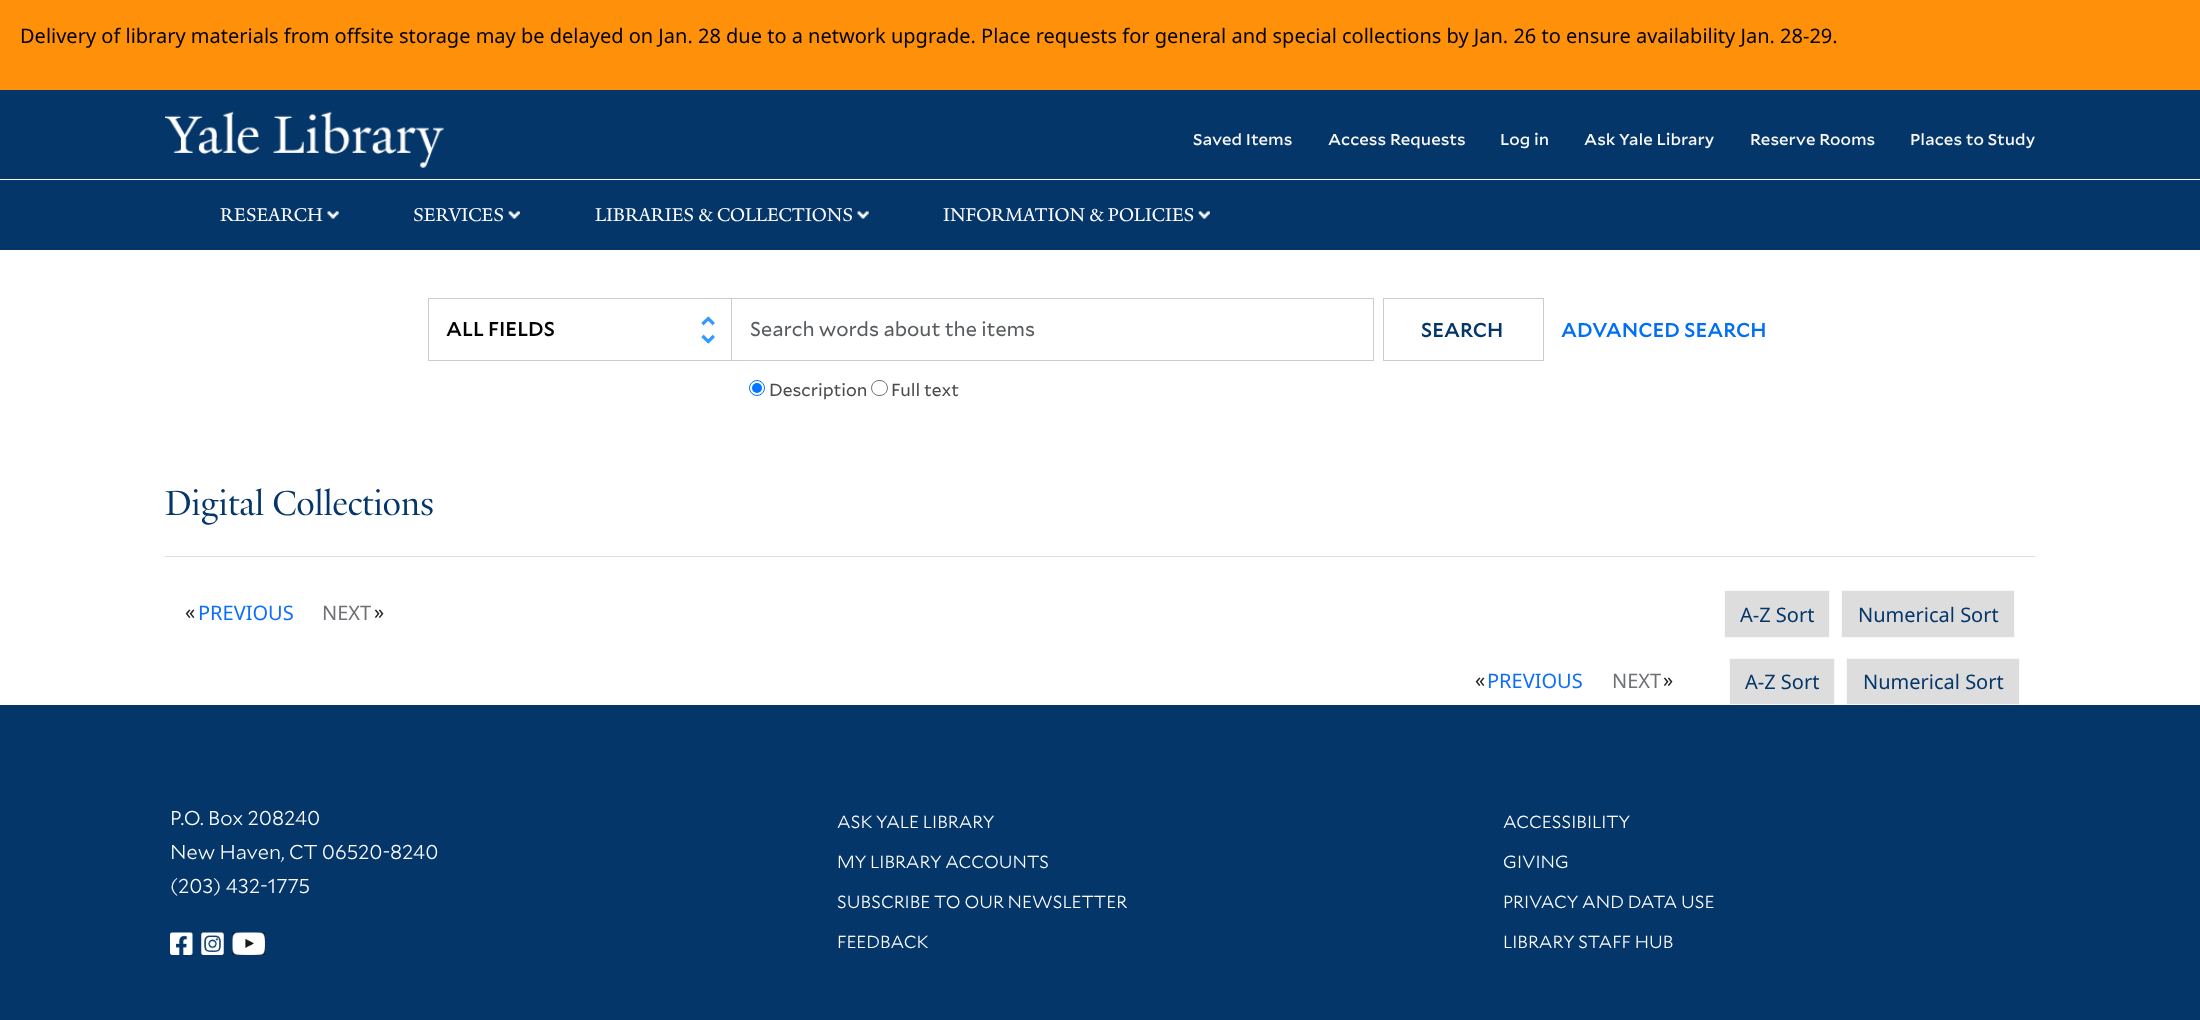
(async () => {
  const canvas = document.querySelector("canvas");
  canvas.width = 2200;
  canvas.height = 1020;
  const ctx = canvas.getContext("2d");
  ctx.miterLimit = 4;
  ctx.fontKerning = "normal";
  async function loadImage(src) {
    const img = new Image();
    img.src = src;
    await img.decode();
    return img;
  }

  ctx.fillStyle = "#ffffff";
  ctx.fillRect(0, 0, 2200, 1020);
  ctx.fillStyle = "#fe900a";
  ctx.fillRect(0, 0, 2200, 90);
  ctx.fillStyle = "#043669";
  ctx.fillRect(0, 90, 2200, 89);
  ctx.drawImage(await loadImage("img/1.png"), 165, 111, 279, 57);
  ctx.fillRect(0, 180, 2200, 70);
  ctx.drawImage(await loadImage("img/2.png"), 327, 211, 12, 8);
  ctx.drawImage(await loadImage("img/3.png"), 508, 211, 12, 8);
  ctx.drawImage(await loadImage("img/4.png"), 857, 211, 12, 8);
  ctx.drawImage(await loadImage("img/5.png"), 1198, 211, 12, 8);
  ctx.drawImage(await loadImage("img/6.png"), 701, 316, 14, 28);
  ctx.strokeStyle = "#cccccc";
  ctx.strokeRect(428.5, 298.5, 305, 62);
  ctx.fillStyle = "#ffffff";
  ctx.fillRect(733, 299, 1, 61);
  ctx.strokeRect(731.5, 298.5, 642, 62);
  ctx.strokeRect(1383.5, 298.5, 160, 62);
  ctx.beginPath();
  ctx.arc(757, 388, 7.5, 0, Math.PI * 2);
  ctx.strokeStyle = "#0075ff";
  ctx.stroke();
  ctx.fillStyle = "#0075ff";
  ctx.beginPath();
  ctx.arc(757, 388, 5, 0, Math.PI * 2);
  ctx.fill();
  ctx.beginPath();
  ctx.roundRect(871.5, 380.5, 16, 15, 7.5);
  ctx.strokeStyle = "#767676";
  ctx.stroke();
  ctx.fillStyle = "#dddddd";
  ctx.fillRect(165, 556, 1870, 1);
  ctx.beginPath();
  ctx.rect(1724.5, 590.5, 105, 47);
  ctx.fill();
  ctx.strokeStyle = "#f9f9f9";
  ctx.stroke();
  ctx.beginPath();
  ctx.rect(1841.5, 590.5, 173, 47);
  ctx.fill();
  ctx.stroke();
  ctx.beginPath();
  ctx.rect(1729.5, 658.5, 105, 46);
  ctx.fill();
  ctx.stroke();
  ctx.beginPath();
  ctx.rect(1846.5, 658.5, 173, 46);
  ctx.fill();
  ctx.stroke();
  ctx.fillStyle = "#043669";
  ctx.fillRect(0, 705, 2200, 315);
  ctx.drawImage(await loadImage("img/7.png"), 170, 932, 23, 23);
  ctx.drawImage(await loadImage("img/8.png"), 201, 932, 23, 23);
  ctx.drawImage(await loadImage("img/9.png"), 232, 932, 33, 23);
  ctx.font = "20px Noto Sans";
  ctx.fillStyle = "#000000";
  ctx.fillText("Delivery of library materials from offsite storage may be delayed on Jan. 28 due to a network upgrade. Place requests for general and special collections by Jan. 26 to ensure availability Jan. 28-29.", 20, 43);
  ctx.font = "500 15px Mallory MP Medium";
  ctx.fillStyle = "#f9f9f9";
  for (const [text, x, y] of [
    ["Saved Items", 1193, 145],
    ["Access Requests", 1328, 145],
    ["Log in", 1500, 145],
    ["Ask Yale Library", 1584, 145],
    ["Reserve Rooms", 1750, 145],
    ["Places to Study", 1910, 145],
  ]) {
    ctx.fillText(text, x, y);
  }
  ctx.font = "20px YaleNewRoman";
  ctx.fillStyle = "#ffffff";
  for (const [text, x, y] of [
    ["RESEARCH", 220, 221],
    ["SERVICES", 413, 221],
    ["LIBRARIES & COLLECTIONS", 595, 221],
    ["INFORMATION & POLICIES", 943, 221],
  ]) {
    ctx.fillText(text, x, y);
  }
  ctx.font = "500 20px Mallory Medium";
  ctx.fillStyle = "#000000";
  ctx.fillText("ALL FIELDS", 446, 336);
  ctx.font = "20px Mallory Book";
  ctx.fillStyle = "#595c5f";
  ctx.fillText("Search words about the items", 750, 336);
  ctx.font = "500 20px Mallory Medium";
  ctx.fillStyle = "#043669";
  ctx.fillText("SEARCH", 1421, 337);
  ctx.fillStyle = "#006ef5";
  ctx.fillText("ADVANCED SEARCH", 1561, 337);
  ctx.font = "17.5px Mallory Book";
  ctx.fillStyle = "#4a4a4a";
  ctx.fillText("Description", 769, 396);
  ctx.fillText("Full text", 891, 396);
  ctx.font = "37.5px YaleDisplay";
  ctx.fillStyle = "#043669";
  ctx.fillText("Digital Collections", 165, 515);
  ctx.font = "20px Noto Sans";
  ctx.fillStyle = "#212529";
  ctx.fillText("«", 185, 619);
  ctx.fillStyle = "#0d6efd";
  ctx.fillText("PREVIOUS", 198, 620);
  ctx.fillStyle = "#6f7174";
  ctx.fillText("NEXT", 322, 620);
  ctx.fillStyle = "#212529";
  ctx.fillText("»", 374, 619);
  ctx.fillStyle = "#043669";
  ctx.fillText("A-Z Sort", 1740, 622);
  ctx.fillText("Numerical Sort", 1858, 622);
  ctx.fillStyle = "#212529";
  ctx.fillText("«", 1475, 687);
  ctx.fillStyle = "#0d6efd";
  ctx.fillText("PREVIOUS", 1487, 688);
  ctx.fillStyle = "#6f7174";
  ctx.fillText("NEXT", 1612, 688);
  ctx.fillStyle = "#212529";
  ctx.fillText("»", 1663, 687);
  ctx.fillStyle = "#043669";
  ctx.fillText("A-Z Sort", 1745, 689);
  ctx.fillText("Numerical Sort", 1863, 689);
  ctx.font = "300 20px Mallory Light";
  ctx.fillStyle = "#ffffff";
  for (const [text, x, y] of [
    ["P.O. Box 208240", 170, 825],
    ["New Haven, CT 06520-8240", 170, 859],
    ["(203) 432-1775", 170, 893],
  ]) {
    ctx.fillText(text, x, y);
  }
  ctx.font = "300 17.5px Mallory Light";
  for (const [text, x, y] of [
    ["ASK YALE LIBRARY", 837, 828],
    ["MY LIBRARY ACCOUNTS", 837, 868],
    ["SUBSCRIBE TO OUR NEWSLETTER", 837, 908],
    ["FEEDBACK", 837, 948],
    ["ACCESSIBILITY", 1503, 828],
    ["GIVING", 1503, 868],
    ["PRIVACY AND DATA USE", 1503, 908],
    ["LIBRARY STAFF HUB", 1503, 948],
  ]) {
    ctx.fillText(text, x, y);
  }
})();
